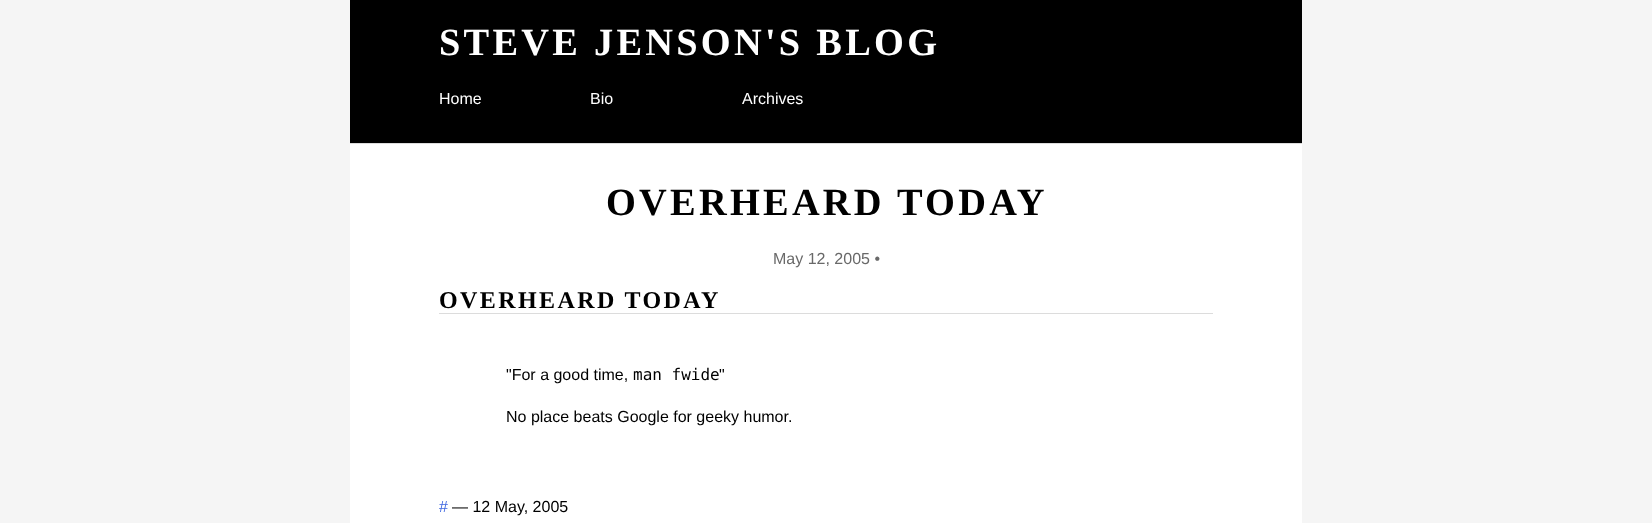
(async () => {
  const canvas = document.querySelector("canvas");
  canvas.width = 1652;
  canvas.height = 523;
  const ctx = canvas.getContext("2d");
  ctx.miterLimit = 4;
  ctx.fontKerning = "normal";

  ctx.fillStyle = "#f5f5f5";
  ctx.fillRect(0, 0, 1652, 523);
  for (const [x, y, w, h, color] of [
    [350, 0, 952, 143, "#000000"],
    [350, 144, 952, 379, "#ffffff"],
    [350, 143, 952, 1, "#dcdcdc"],
    [439, 313, 774, 1, "#dcdcdc"],
  ]) {
    ctx.fillStyle = color;
    ctx.fillRect(x, y, w, h);
  }
  ctx.letterSpacing = "3.25px";
  ctx.font = "bold 38.4px Liberation Serif";
  ctx.fillStyle = "#ffffff";
  ctx.fillText("STEVE JENSON'S BLOG", 439, 55);
  ctx.letterSpacing = "0px";
  ctx.font = "16px Liberation Sans";
  for (const [text, x, y] of [
    ["Home", 439, 104],
    ["Bio", 590, 104],
    ["Archives", 742, 104],
  ]) {
    ctx.fillText(text, x, y);
  }
  ctx.letterSpacing = "3.25px";
  ctx.font = "bold 38.4px Liberation Serif";
  ctx.fillStyle = "#000000";
  ctx.fillText("OVERHEARD TODAY", 606, 215);
  ctx.letterSpacing = "0px";
  ctx.font = "16px Liberation Sans";
  ctx.fillStyle = "#696969";
  ctx.fillText("May 12, 2005 •", 773, 264);
  ctx.letterSpacing = "2.4px";
  ctx.font = "bold 24px Liberation Serif";
  ctx.fillStyle = "#000000";
  ctx.fillText("OVERHEARD TODAY", 439, 308);
  ctx.letterSpacing = "0px";
  ctx.font = "16px Liberation Sans";
  ctx.fillText("\"For a good time,", 506, 380);
  ctx.font = "16px DejaVu Sans Mono";
  ctx.fillText("man fwide", 633, 380);
  ctx.font = "16px Liberation Sans";
  ctx.fillText("\"", 719, 380);
  ctx.fillText("No place beats Google for geeky humor.", 506, 422);
  ctx.fillStyle = "#4169e1";
  ctx.fillText("#", 439, 512);
  ctx.fillStyle = "#000000";
  ctx.fillText("— 12 May, 2005", 452, 512);
})();
